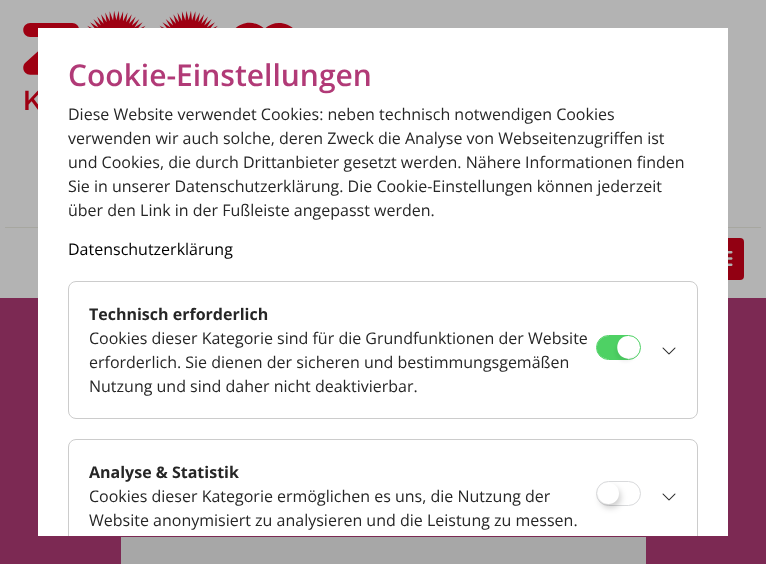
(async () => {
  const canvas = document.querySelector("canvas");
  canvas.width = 766;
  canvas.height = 564;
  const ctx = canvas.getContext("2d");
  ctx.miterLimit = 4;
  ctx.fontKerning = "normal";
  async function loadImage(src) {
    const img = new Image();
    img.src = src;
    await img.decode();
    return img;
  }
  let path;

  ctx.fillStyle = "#b3b3b3";
  ctx.fillRect(0, 0, 766, 564);
  ctx.drawImage(await loadImage("img/1.png"), 23, 11, 270, 99);
  ctx.fillStyle = "#a7a7a0";
  ctx.fillRect(5, 227, 756, 1);
  ctx.fillStyle = "#920012";
  ctx.beginPath();
  ctx.roundRect(704, 238, 40, 42, 4);
  ctx.fill();
  ctx.drawImage(await loadImage("img/2.png"), 728, 251, 5, 15);
  ctx.fillStyle = "#7c2953";
  ctx.fillRect(0, 298, 766, 266);
  ctx.fillStyle = "#ffffff";
  ctx.fillRect(38, 28, 690, 508);
  ctx.beginPath();
  ctx.roundRect(68.5, 281.5, 629, 137, 7.5);
  ctx.strokeStyle = "#cccccc";
  ctx.stroke();
  ctx.fillStyle = "#4ed164";
  path = new Path2D("M608.5 336C596 336 592.5 353.5 604 358C607.5 359.5 611.5 359 615 359H628.5L624.5 358C613.5 354 615.5 336 628 336Z");
  ctx.fill(path);
  ctx.beginPath();
  ctx.roundRect(596.5, 335.5, 44, 24, 12);
  ctx.strokeStyle = "#4ed164";
  ctx.stroke();
  ctx.save();
  path = new Path2D("M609 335H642V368H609ZM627.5 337C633.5 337 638 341.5 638 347.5C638 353.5 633.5 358 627.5 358C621.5 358 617 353.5 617 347.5C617 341.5 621.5 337 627.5 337Z");
  ctx.clip(path, "evenodd");
  ctx.fillStyle = "rgba(0, 0, 0, 0.05)";
  ctx.filter = "blur(1.5px)";
  ctx.beginPath();
  ctx.roundRect(615, 341, 21, 21, 10.5);
  ctx.fill();
  ctx.filter = "none";
  ctx.restore();
  ctx.drawImage(await loadImage("img/3.png"), 662, 347, 14, 8);
  ctx.fillStyle = "#a7a7a7";
  ctx.fillRect(121, 537, 525, 27);
  ctx.save();
  ctx.beginPath();
  ctx.rect(38, 28, 690, 508);
  ctx.clip();
  ctx.beginPath();
  ctx.roundRect(68.5, 439.5, 629, 113, 7.5);
  ctx.strokeStyle = "#cccccc";
  ctx.stroke();
  ctx.restore();
  ctx.beginPath();
  ctx.roundRect(596.5, 481.5, 44, 24, 12);
  ctx.strokeStyle = "#d9dadc";
  ctx.stroke();
  ctx.save();
  path = new Path2D("M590 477H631V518H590ZM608.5 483C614.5 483 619 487.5 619 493.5C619 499.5 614.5 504 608.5 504C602.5 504 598 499.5 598 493.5C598 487.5 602.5 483 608.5 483Z");
  ctx.clip(path, "evenodd");
  ctx.fillStyle = "rgba(0, 0, 0, 0.2)";
  ctx.filter = "blur(3px)";
  ctx.beginPath();
  ctx.roundRect(600, 487, 21, 21, 10.5);
  ctx.fill();
  ctx.filter = "none";
  ctx.restore();
  ctx.drawImage(await loadImage("img/3.png"), 662, 493, 14, 8);
  ctx.font = "600 30px Open Sans";
  ctx.fillStyle = "#b13a77";
  ctx.fillText("Cookie-Einstellungen", 68, 86);
  ctx.font = "16px Open Sans";
  ctx.fillStyle = "#262626";
  for (const [text, x, y] of [
    ["Diese Website verwendet Cookies: neben technisch notwendigen Cookies", 68, 120],
    ["verwenden wir auch solche, deren Zweck die Analyse von Webseitenzugriffen ist", 68, 144],
    ["und Cookies, die durch Drittanbieter gesetzt werden. Nähere Informationen finden", 68, 168],
    ["Sie in unserer Datenschutzerklärung. Die Cookie-Einstellungen können jederzeit", 68, 192],
    ["über den Link in der Fußleiste angepasst werden.", 68, 216],
  ]) {
    ctx.fillText(text, x, y);
  }
  ctx.fillStyle = "#000000";
  ctx.fillText("Datenschutzerklärung", 68, 255);
  ctx.font = "bold 16px Open Sans";
  ctx.fillStyle = "#262626";
  ctx.fillText("Technisch erforderlich", 89, 320);
  ctx.font = "16px Open Sans";
  for (const [text, x, y] of [
    ["Cookies dieser Kategorie sind für die Grundfunktionen der Website", 89, 344],
    ["erforderlich. Sie dienen der sicheren und bestimmungsgemäßen", 89, 368],
    ["Nutzung und sind daher nicht deaktivierbar.", 89, 392],
  ]) {
    ctx.fillText(text, x, y);
  }
  ctx.font = "bold 16px Open Sans";
  ctx.fillText("Analyse & Statistik", 89, 478);
  ctx.font = "16px Open Sans";
  ctx.fillText("Cookies dieser Kategorie ermöglichen es uns, die Nutzung der", 89, 502);
  ctx.fillText("Website anonymisiert zu analysieren und die Leistung zu messen.", 89, 526);
})();
